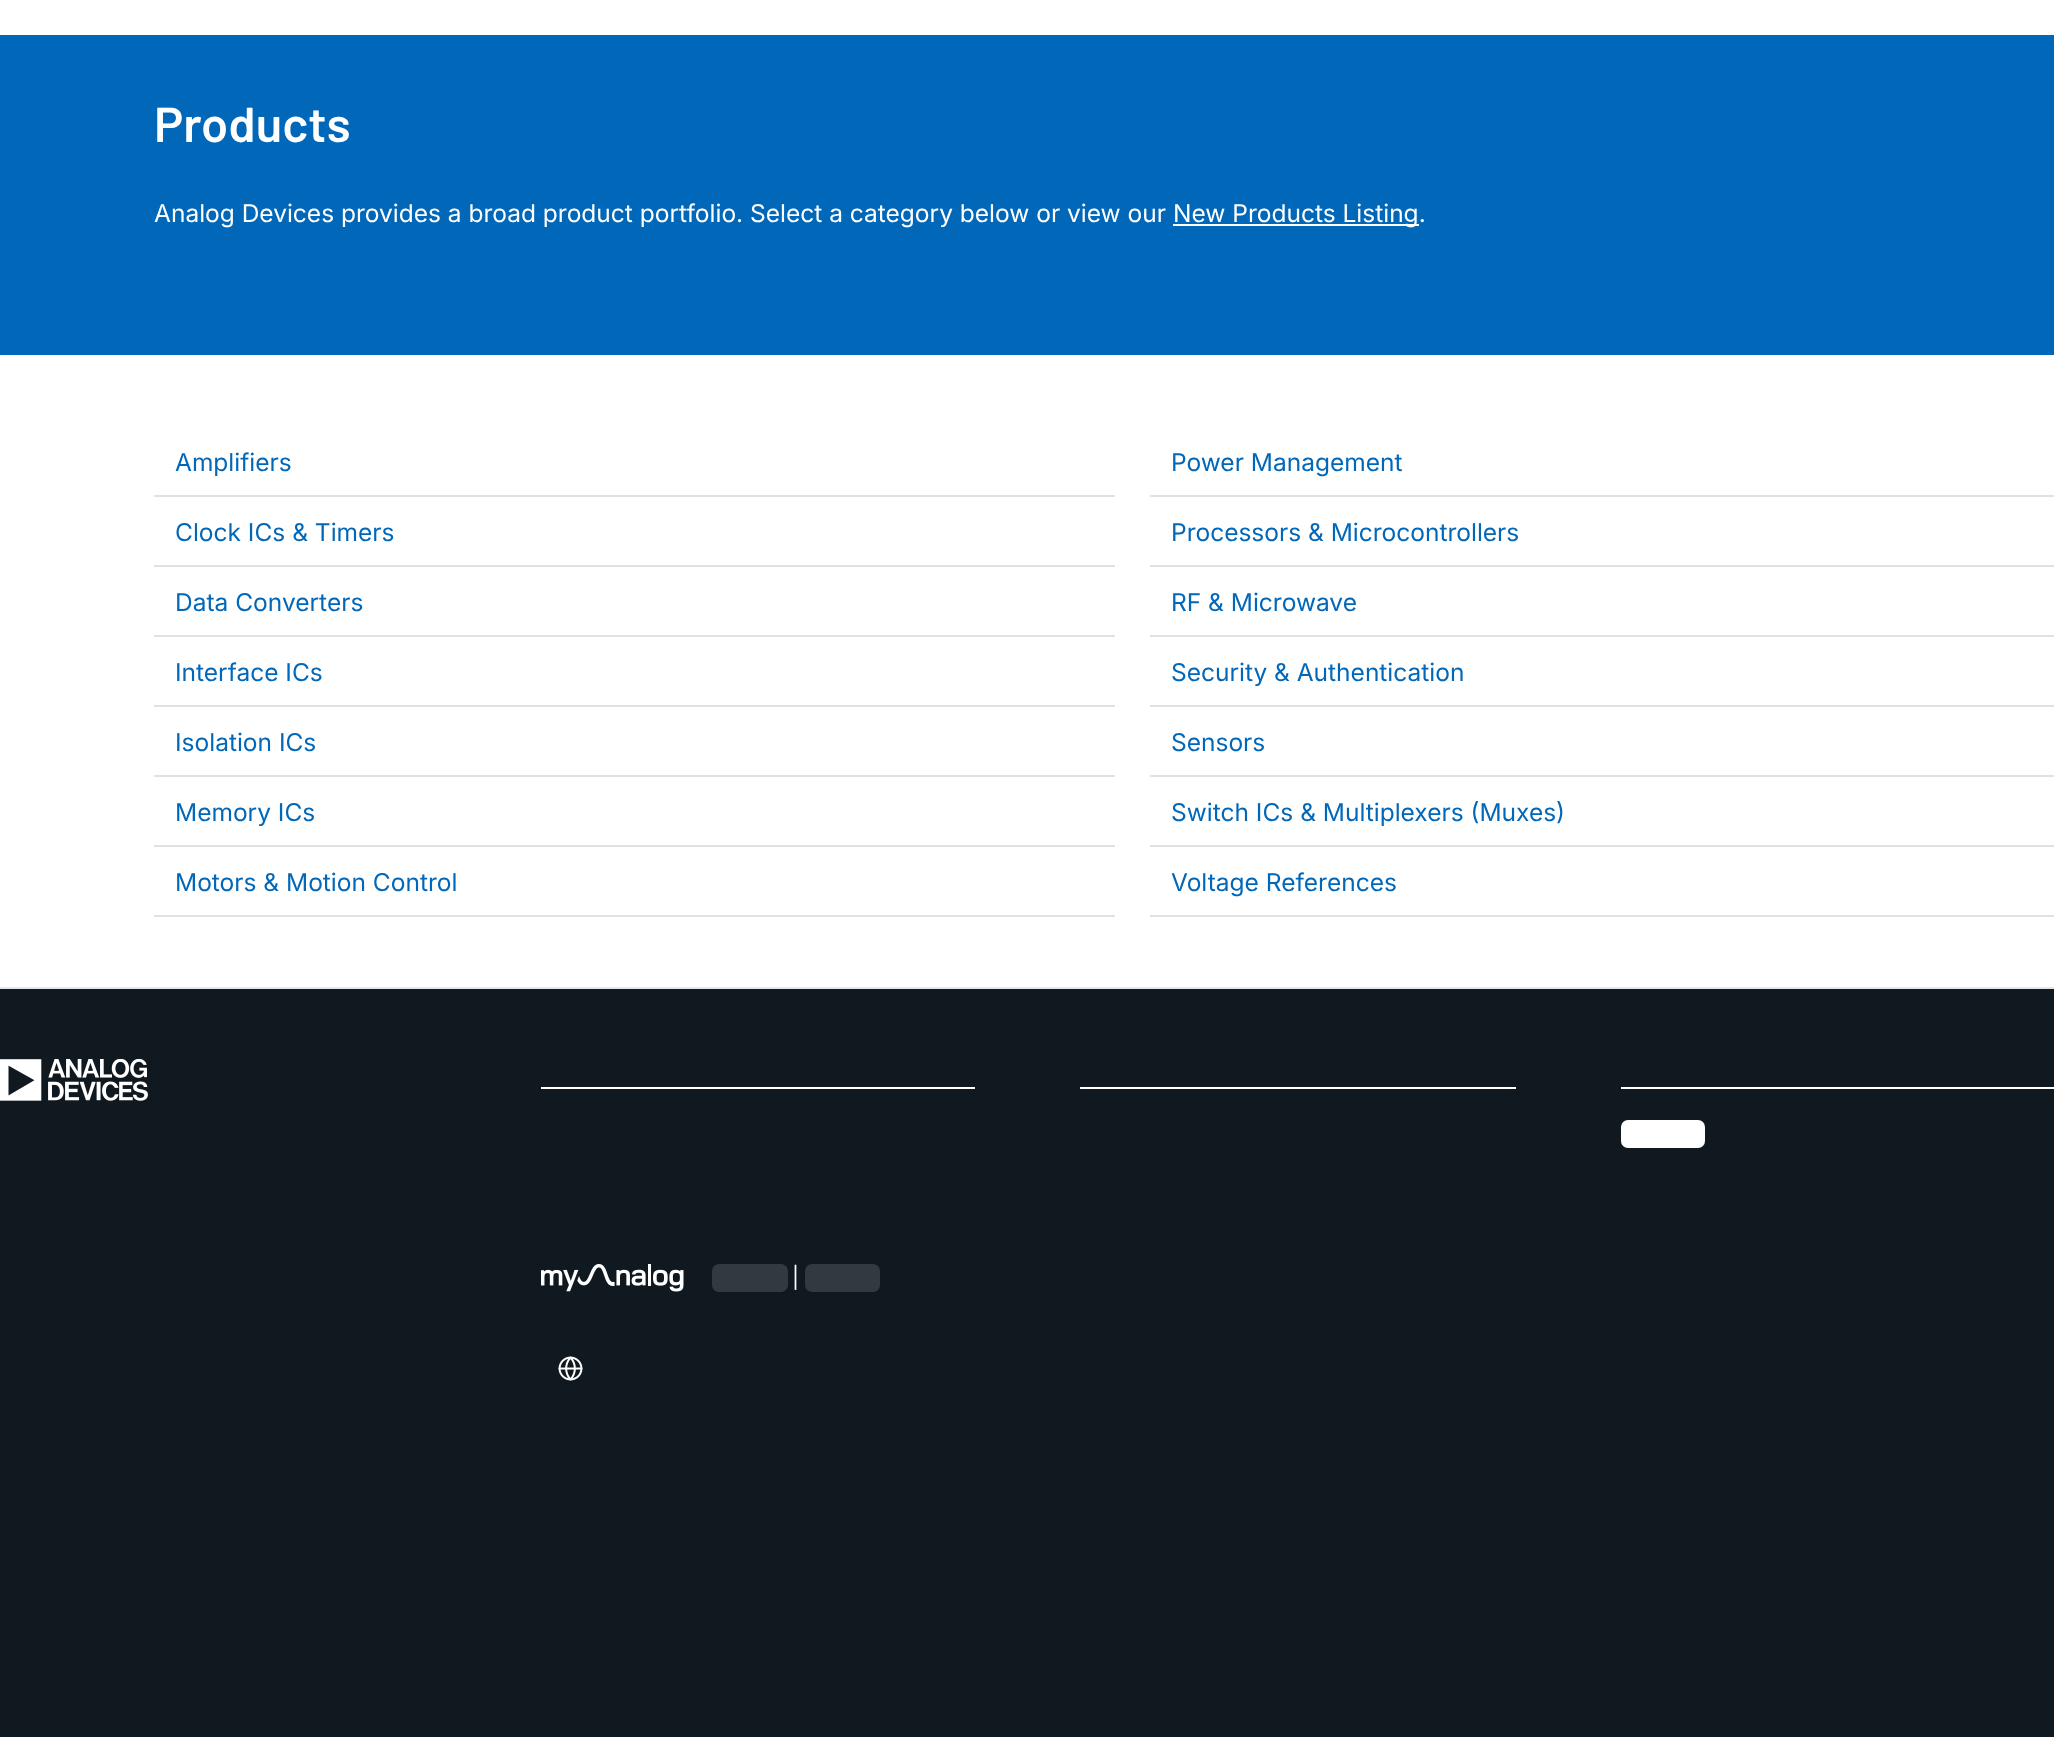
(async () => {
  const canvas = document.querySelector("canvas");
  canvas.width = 2054;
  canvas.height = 1737;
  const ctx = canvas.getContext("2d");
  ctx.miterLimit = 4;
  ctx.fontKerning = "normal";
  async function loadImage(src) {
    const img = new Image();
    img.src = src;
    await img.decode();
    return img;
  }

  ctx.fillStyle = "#ffffff";
  ctx.fillRect(0, 0, 2054, 1737);
  for (const [x, y, w, h, color] of [
    [0, 35, 2054, 320, "#0067b9"],
    [1173, 224, 246, 2, "#ffffff"],
    [0, 987, 2054, 2, "#e6e6e6"],
    [154, 495, 961, 2, "#e0e1e6"],
    [1150, 495, 904, 2, "#e0e1e6"],
    [154, 565, 961, 2, "#e0e1e6"],
    [1150, 565, 904, 2, "#e0e1e6"],
    [154, 635, 961, 2, "#e0e1e6"],
    [1150, 635, 904, 2, "#e0e1e6"],
    [154, 705, 961, 2, "#e0e1e6"],
    [1150, 705, 904, 2, "#e0e1e6"],
    [154, 775, 961, 2, "#e0e1e6"],
    [1150, 775, 904, 2, "#e0e1e6"],
    [154, 845, 961, 2, "#e0e1e6"],
    [1150, 845, 904, 2, "#e0e1e6"],
    [154, 915, 961, 2, "#e0e1e6"],
    [1150, 915, 904, 2, "#e0e1e6"],
    [0, 989, 2054, 748, "#101820"],
  ]) {
    ctx.fillStyle = color;
    ctx.fillRect(x, y, w, h);
  }
  ctx.drawImage(await loadImage("img/1.png"), 0, 1059, 148, 42);
  for (const [x, y, w, h, color] of [
    [541, 1087, 434, 2, "#ffffff"],
    [1080, 1087, 436, 2, "#ffffff"],
    [1621, 1087, 433, 2, "#ffffff"],
  ]) {
    ctx.fillStyle = color;
    ctx.fillRect(x, y, w, h);
  }
  ctx.beginPath();
  ctx.roundRect(1621, 1120, 84, 28, 7);
  ctx.fill();
  ctx.drawImage(await loadImage("img/2.png"), 541, 1264, 143, 28);
  ctx.fillStyle = "#333940";
  ctx.beginPath();
  ctx.roundRect(712, 1264, 76, 28, 7);
  ctx.fill();
  ctx.beginPath();
  ctx.roundRect(805, 1264, 75, 28, 7);
  ctx.fill();
  ctx.drawImage(await loadImage("img/3.png"), 558, 1356, 25, 25);
  ctx.font = "600 49px Barlow";
  ctx.fillStyle = "#ffffff";
  ctx.fillText("Products", 154, 142);
  ctx.font = "24.5px Inter";
  ctx.fillText("Analog Devices provides a broad product portfolio. Select a category below or view our", 154, 222);
  ctx.fillText("New Products Listing.", 1173, 222);
  ctx.fillStyle = "#0067b9";
  for (const [text, x, y] of [
    ["Amplifiers", 175, 471],
    ["Power Management", 1171, 471],
    ["Clock ICs & Timers", 175, 541],
    ["Processors & Microcontrollers", 1171, 541],
    ["Data Converters", 175, 611],
    ["RF & Microwave", 1171, 611],
    ["Interface ICs", 175, 681],
    ["Security & Authentication", 1171, 681],
    ["Isolation ICs", 175, 751],
    ["Sensors", 1171, 751],
    ["Memory ICs", 175, 821],
    ["Switch ICs & Multiplexers (Muxes)", 1171, 821],
    ["Motors & Motion Control", 175, 891],
    ["Voltage References", 1171, 891],
  ]) {
    ctx.fillText(text, x, y);
  }
  ctx.font = "21px Inter";
  ctx.fillStyle = "#ffffff";
  ctx.fillText("|", 792, 1285);
})();
